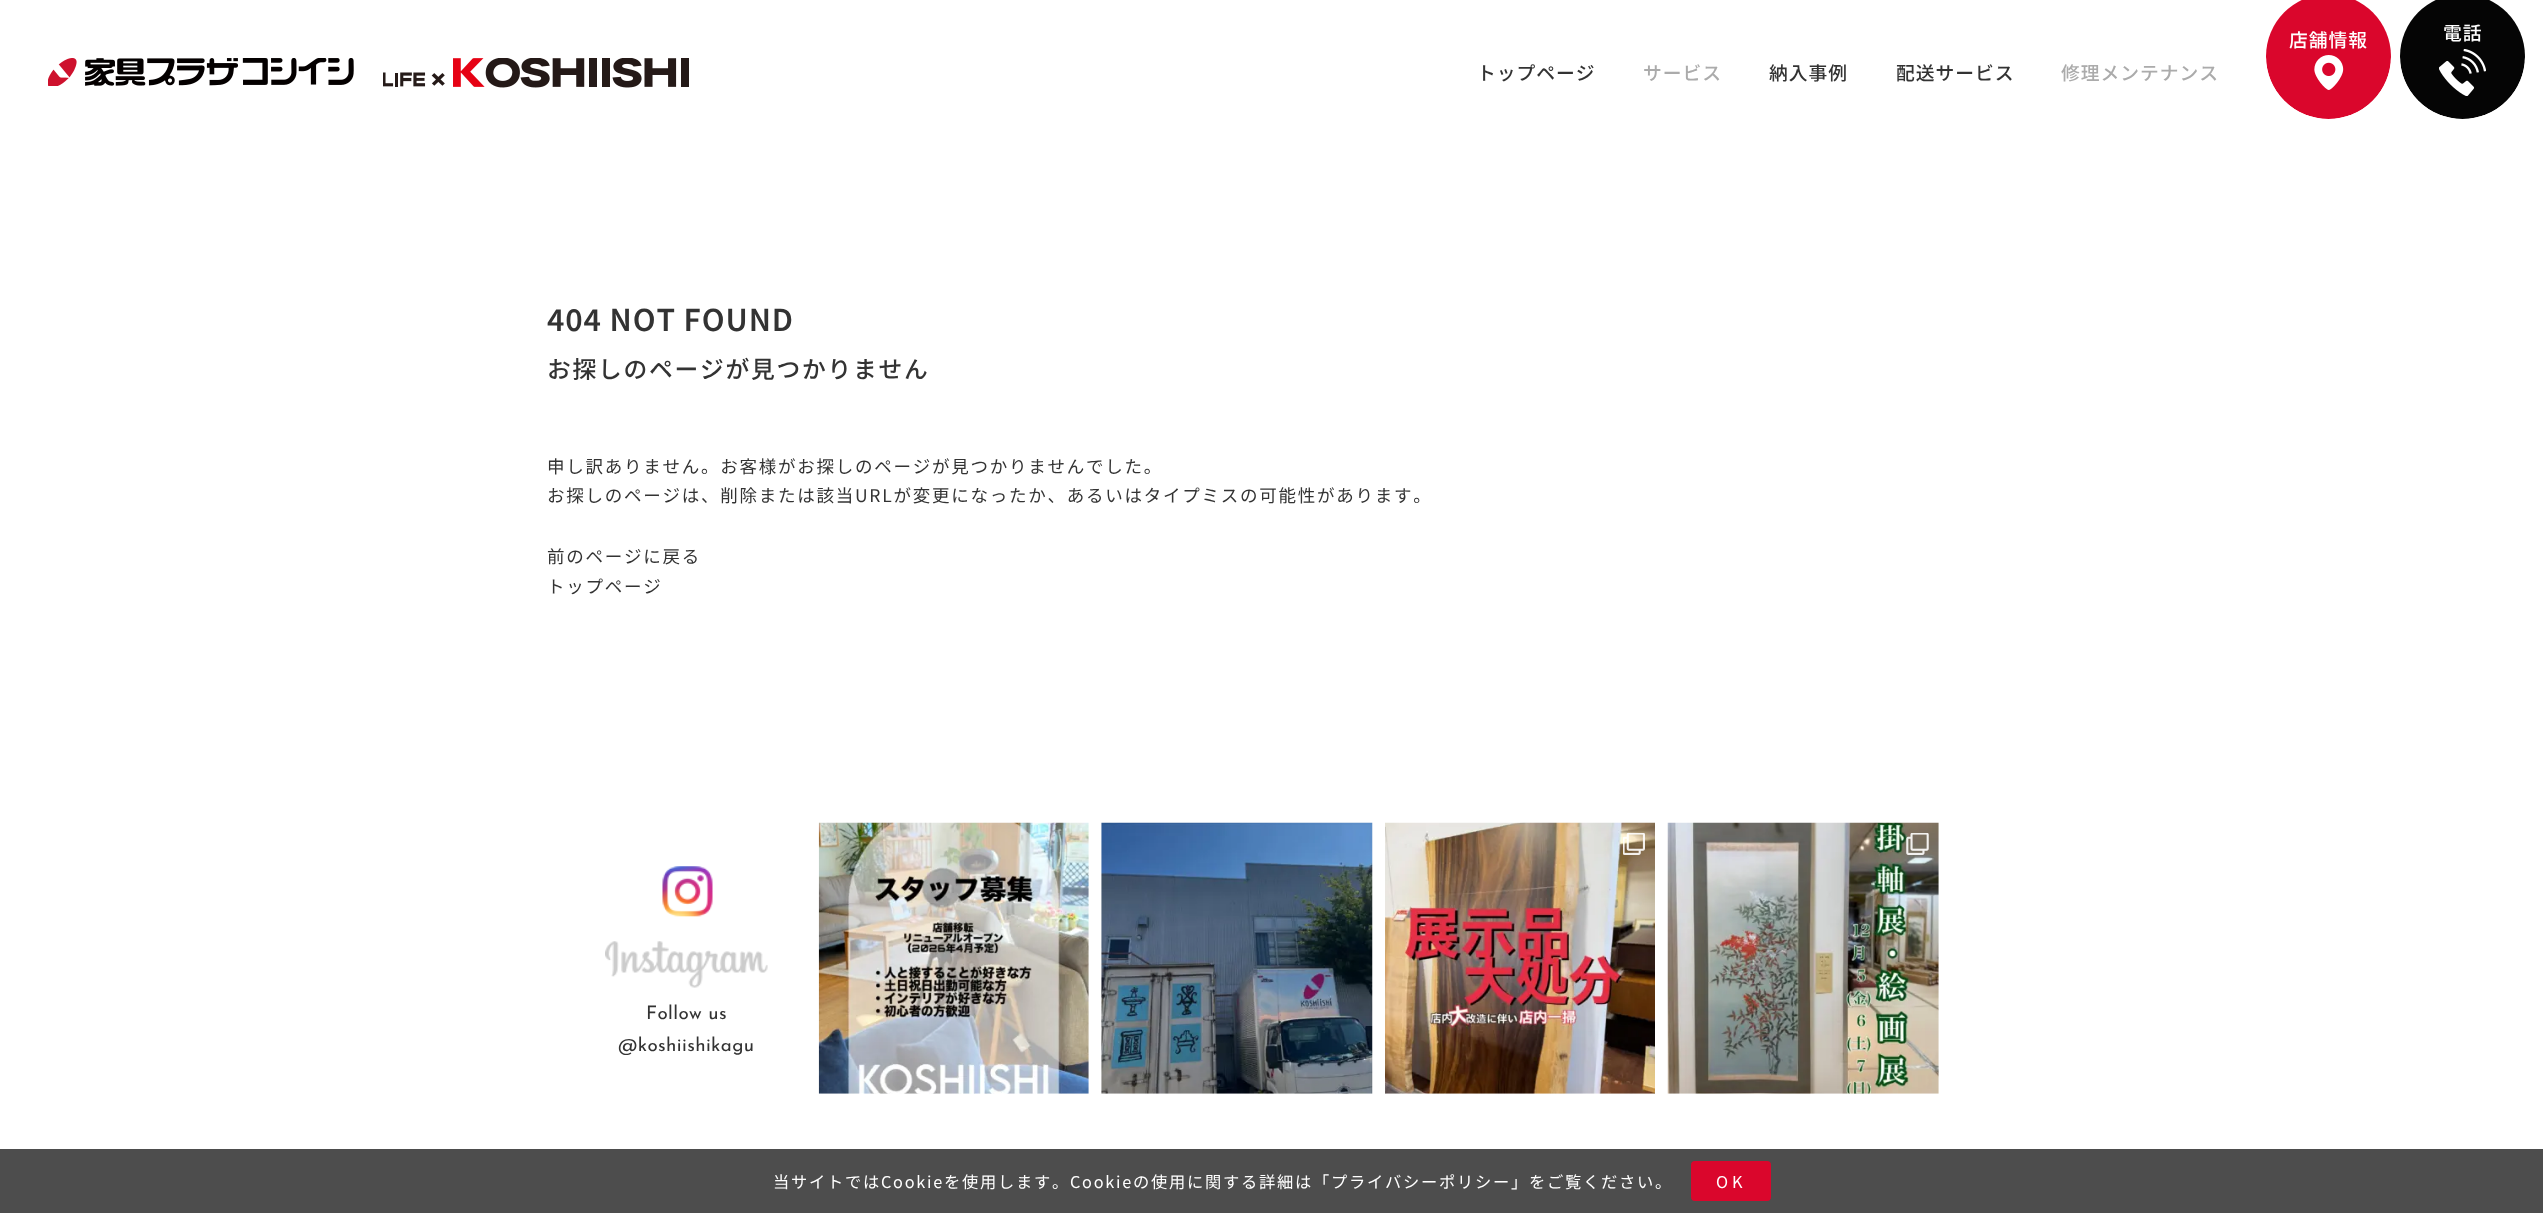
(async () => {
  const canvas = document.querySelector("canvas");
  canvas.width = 2543;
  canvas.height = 1213;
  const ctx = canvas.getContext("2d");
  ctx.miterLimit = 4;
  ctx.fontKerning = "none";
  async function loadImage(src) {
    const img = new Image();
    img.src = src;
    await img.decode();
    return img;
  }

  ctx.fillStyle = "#ffffff";
  ctx.fillRect(0, 0, 2543, 1213);
  ctx.drawImage(await loadImage("img/1.png"), 48, 58, 306, 28);
  ctx.drawImage(await loadImage("img/2.png"), 383, 58, 306, 30);
  ctx.save();
  ctx.beginPath();
  ctx.roundRect(2266, -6, 125, 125, 62.5);
  ctx.clip();
  ctx.fillStyle = "#da062c";
  ctx.beginPath();
  ctx.roundRect(2266, 0, 125, 119, [0, 0, 62.5, 62.5]);
  ctx.fill();
  ctx.restore();
  ctx.drawImage(await loadImage("img/3.png"), 2314, 55, 30, 35);
  ctx.save();
  ctx.beginPath();
  ctx.roundRect(2400, -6, 125, 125, 62.5);
  ctx.clip();
  ctx.fillStyle = "#050505";
  ctx.beginPath();
  ctx.roundRect(2400, 0, 125, 119, [0, 0, 62.5, 62.5]);
  ctx.fill();
  ctx.restore();
  ctx.drawImage(await loadImage("img/4.png"), 2439, 49, 47, 47);
  ctx.drawImage(await loadImage("img/5.png"), 605, 866, 163, 122);
  ctx.drawImage(await loadImage("img/6.png"), 818, 822, 271, 272);
  ctx.drawImage(await loadImage("img/7.png"), 1101, 822, 272, 272);
  ctx.drawImage(await loadImage("img/8.png"), 1385, 822, 270, 272);
  ctx.drawImage(await loadImage("img/9.png"), 1623, 833, 22, 22);
  ctx.drawImage(await loadImage("img/10.png"), 1667, 822, 272, 272);
  ctx.drawImage(await loadImage("img/11.png"), 1906, 833, 23, 22);
  ctx.fillStyle = "#4d4d4d";
  ctx.fillRect(0, 1149, 2543, 64);
  ctx.fillStyle = "#da062c";
  ctx.beginPath();
  ctx.roundRect(1691, 1161, 80, 40, 4);
  ctx.fill();
  ctx.letterSpacing = "1px";
  ctx.font = "500 18.75px Noto Sans JP";
  ctx.fillStyle = "#ffffff";
  ctx.fillText("店舗情報", 2289, 47);
  ctx.fillText("電話", 2443, 40);
  ctx.fillStyle = "#333333";
  ctx.fillText("トップページ", 1477, 80);
  ctx.fillStyle = "#ababab";
  ctx.fillText("サービス", 1643, 80);
  ctx.fillStyle = "#333333";
  ctx.fillText("納入事例", 1769, 80);
  ctx.fillText("配送サービス", 1896, 80);
  ctx.fillStyle = "#ababab";
  ctx.fillText("修理メンテナンス", 2061, 80);
  ctx.letterSpacing = "0.9px";
  ctx.font = "600 30px Noto Sans JP";
  ctx.fillStyle = "#333333";
  ctx.fillText("404 NOT FOUND", 547, 331);
  ctx.letterSpacing = "1.75px";
  ctx.font = "500 23.75px Noto Sans JP";
  ctx.fillText("お探しのページが見つかりません", 547, 378);
  ctx.font = "17.5px Noto Sans JP";
  for (const [text, x, y] of [
    ["申し訳ありません。お客様がお探しのページが見つかりませんでした。", 547, 473],
    ["お探しのページは、削除または該当URLが変更になったか、あるいはタイプミスの可能性があります。", 547, 502],
    ["前のページに戻る", 547, 563],
    ["トップページ", 547, 593],
  ]) {
    ctx.fillText(text, x, y);
  }
  ctx.letterSpacing = "0.4px";
  ctx.font = "18.75px Josefin Sans";
  ctx.fillText("Follow us", 646, 1019);
  ctx.fillText("@koshiishikagu", 618, 1051);
  ctx.letterSpacing = "1.75px";
  ctx.font = "16.25px Noto Sans JP";
  ctx.fillStyle = "#ffffff";
  ctx.fillText("当サイトではCookieを使用します。Cookieの使用に関する詳細は「プライバシーポリシー」をご覧ください。", 773, 1188);
  ctx.letterSpacing = "4px";
  ctx.fillText("OK", 1716, 1188);
})();
